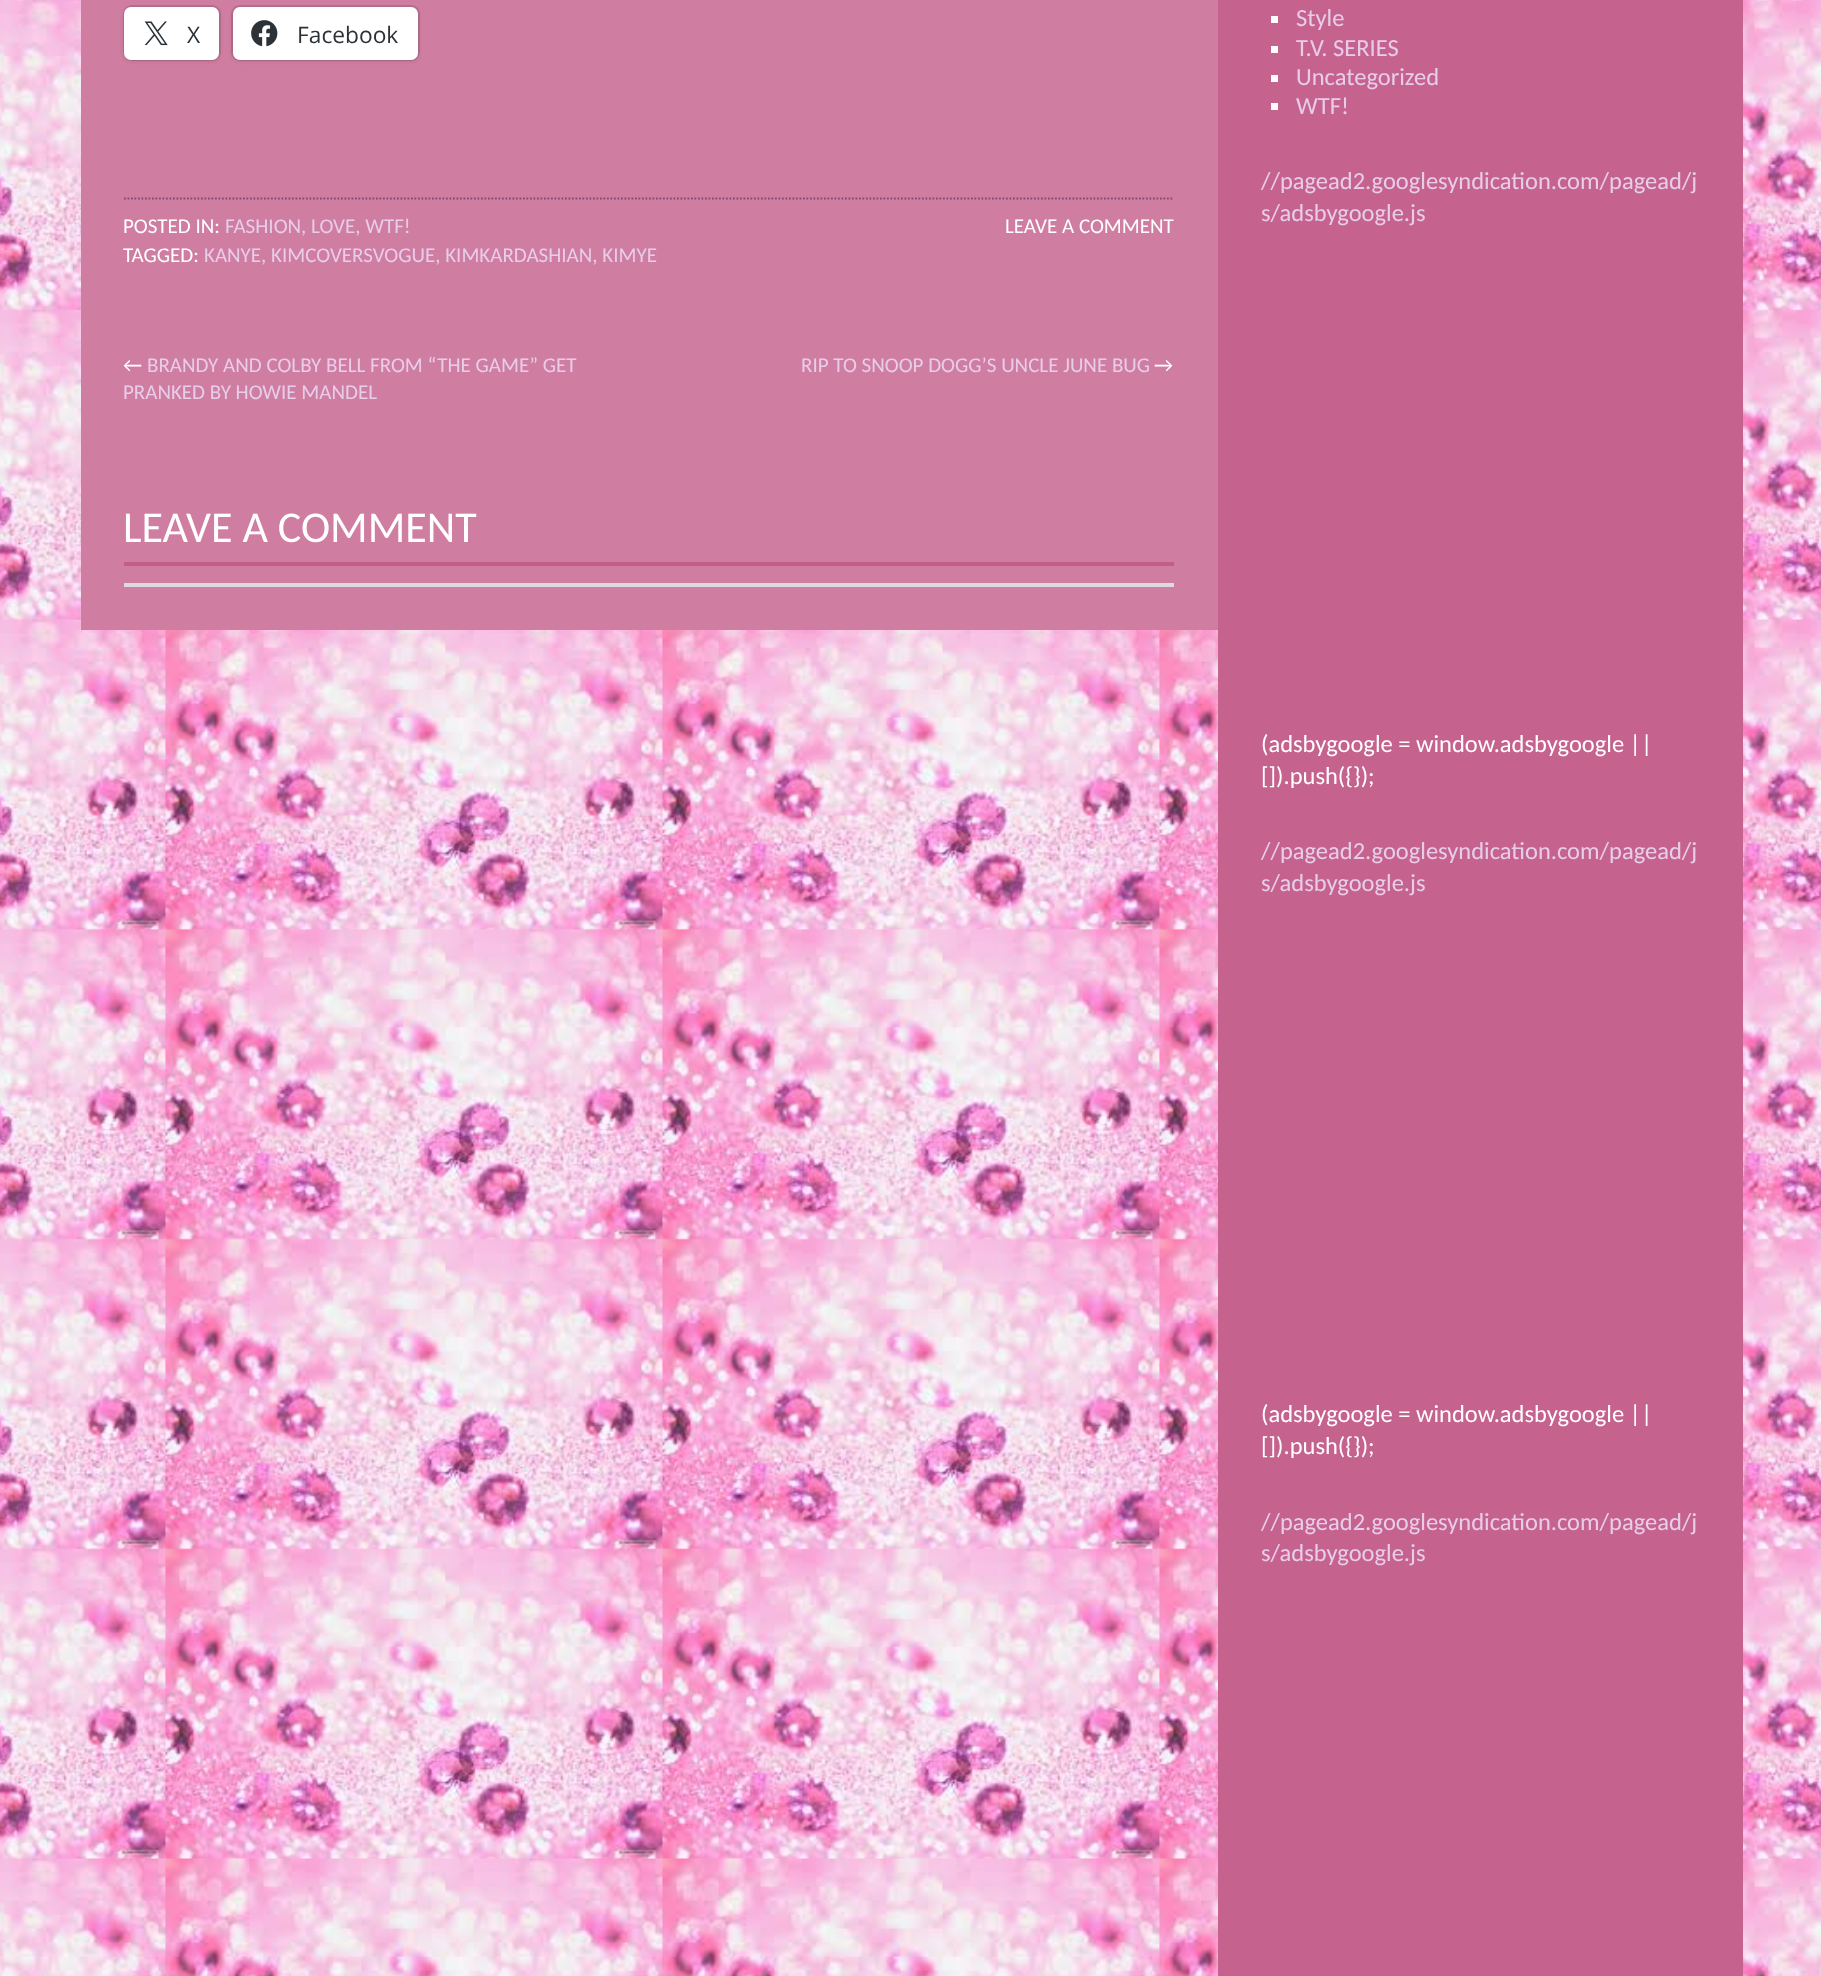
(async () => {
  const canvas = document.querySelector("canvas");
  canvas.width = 1821;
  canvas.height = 1976;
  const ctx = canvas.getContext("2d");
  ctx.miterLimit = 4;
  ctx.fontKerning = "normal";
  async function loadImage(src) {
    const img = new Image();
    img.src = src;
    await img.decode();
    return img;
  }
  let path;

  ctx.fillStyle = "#ffffff";
  ctx.fillRect(0, 0, 1821, 1976);
  ctx.drawImage(await loadImage("img/1.png"), 0, 0, 1821, 1976);
  ctx.fillStyle = "#cf7da1";
  ctx.fillRect(81, 0, 1137, 630);
  ctx.beginPath();
  ctx.roundRect(124, 6, 96, 54, 8);
  ctx.strokeStyle = "#b66e8e";
  ctx.lineWidth = 2;
  ctx.stroke();
  ctx.fillStyle = "rgba(0, 0, 0, 0.12)";
  ctx.filter = "blur(2px)";
  ctx.beginPath();
  ctx.roundRect(124, 9, 95, 52, 7);
  ctx.fill();
  ctx.filter = "none";
  ctx.fillStyle = "#ffffff";
  ctx.beginPath();
  ctx.roundRect(124, 7, 95, 53, 7);
  ctx.fill();
  ctx.drawImage(await loadImage("img/2.png"), 144, 21, 24, 25);
  ctx.beginPath();
  ctx.roundRect(232, 6, 187, 54, 8);
  ctx.stroke();
  ctx.fillStyle = "rgba(0, 0, 0, 0.12)";
  ctx.filter = "blur(2px)";
  ctx.beginPath();
  ctx.roundRect(233, 9, 185, 52, 7);
  ctx.fill();
  ctx.filter = "none";
  ctx.fillStyle = "#ffffff";
  ctx.beginPath();
  ctx.roundRect(233, 7, 185, 53, 7);
  ctx.fill();
  ctx.drawImage(await loadImage("img/3.png"), 251, 20, 27, 27);
  path = new Path2D("M124 198.5H1174");
  ctx.strokeStyle = "#844a76";
  ctx.lineWidth = 1.8;
  ctx.setLineDash([1.75, 1.75]);
  ctx.stroke(path);
  for (const [x, y, w, h, color] of [
    [124, 562, 1050, 4, "#c35d8a"],
    [124, 583, 1050, 4, "#dcdcde"],
    [1218, 0, 525, 1976, "#c5638e"],
    [1271, 16, 7, 7, "#ffffff"],
    [1271, 46, 7, 7, "#ffffff"],
    [1271, 75, 7, 7, "#ffffff"],
    [1271, 103, 7, 7, "#ffffff"],
  ]) {
    ctx.fillStyle = color;
    ctx.fillRect(x, y, w, h);
  }
  ctx.font = "22.75px Open Sans";
  ctx.fillStyle = "#2c3338";
  ctx.fillText("X", 187, 43);
  ctx.fillText("Facebook", 297, 43);
  ctx.font = "21px Carlito";
  ctx.fillStyle = "#ffffff";
  ctx.fillText("POSTED IN:", 123, 233);
  ctx.fillStyle = "#e8cdeb";
  ctx.fillText("FASHION, LOVE, WTF!", 225, 233);
  ctx.fillStyle = "#ffffff";
  ctx.fillText("LEAVE A COMMENT", 1005, 233);
  ctx.fillText("TAGGED:", 123, 262);
  ctx.fillStyle = "#e8cdeb";
  ctx.fillText("KANYE, KIMCOVERSVOGUE, KIMKARDASHIAN, KIMYE", 204, 262);
  ctx.fillStyle = "#ffffff";
  ctx.fillText("←", 123, 372);
  ctx.fillStyle = "#e8cdeb";
  for (const [text, x, y] of [
    ["BRANDY AND COLBY BELL FROM “THE GAME” GET", 147, 372],
    ["PRANKED BY HOWIE MANDEL", 123, 399],
    ["RIP TO SNOOP DOGG’S UNCLE JUNE BUG", 801, 372],
  ]) {
    ctx.fillText(text, x, y);
  }
  ctx.fillStyle = "#ffffff";
  ctx.fillText("→", 1154, 372);
  ctx.font = "44px Carlito";
  ctx.fillText("LEAVE A COMMENT", 123, 542);
  ctx.font = "24.5px Carlito";
  ctx.fillStyle = "#e8cdeb";
  for (const [text, x, y] of [
    ["Style", 1296, 26],
    ["T.V. SERIES", 1296, 56],
    ["Uncategorized", 1296, 85],
    ["WTF!", 1296, 114],
    ["//pagead2.googlesyndication.com/pagead/j", 1261, 189],
    ["s/adsbygoogle.js", 1261, 221],
  ]) {
    ctx.fillText(text, x, y);
  }
  ctx.fillStyle = "#ffffff";
  ctx.fillText("(adsbygoogle = window.adsbygoogle ||", 1261, 752);
  ctx.fillText("[]).push({});", 1261, 784);
  ctx.fillStyle = "#e8cdeb";
  ctx.fillText("//pagead2.googlesyndication.com/pagead/j", 1261, 859);
  ctx.fillText("s/adsbygoogle.js", 1261, 891);
  ctx.fillStyle = "#ffffff";
  ctx.fillText("(adsbygoogle = window.adsbygoogle ||", 1261, 1422);
  ctx.fillText("[]).push({});", 1261, 1454);
  ctx.fillStyle = "#e8cdeb";
  ctx.fillText("//pagead2.googlesyndication.com/pagead/j", 1261, 1530);
  ctx.fillText("s/adsbygoogle.js", 1261, 1561);
})();
